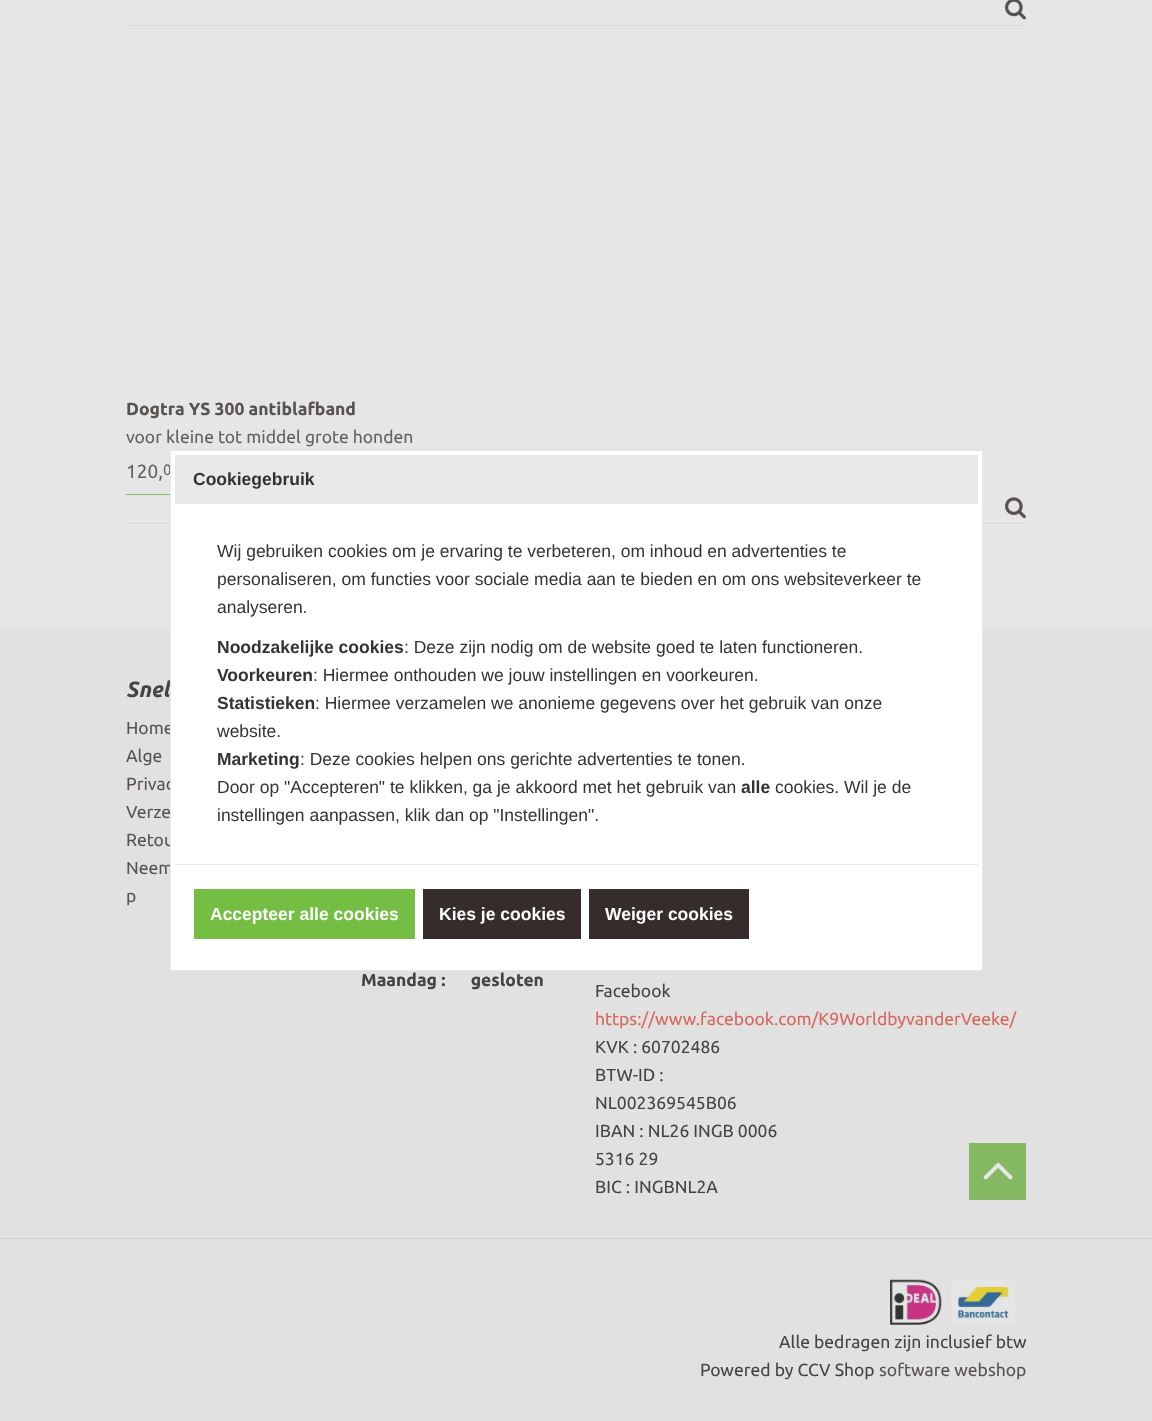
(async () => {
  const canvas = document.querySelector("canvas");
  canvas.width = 1152;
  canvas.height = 1421;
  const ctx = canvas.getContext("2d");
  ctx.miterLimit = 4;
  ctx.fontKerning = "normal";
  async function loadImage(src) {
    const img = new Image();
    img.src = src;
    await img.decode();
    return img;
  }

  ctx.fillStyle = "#e6e6e6";
  ctx.fillRect(0, 0, 1152, 1421);
  ctx.fillStyle = "#dadada";
  ctx.fillRect(126, 25, 900, 1);
  ctx.drawImage(await loadImage("img/1.png"), 1005, 0, 21, 20);
  ctx.fillRect(126, 523, 900, 1);
  ctx.fillStyle = "#84b862";
  ctx.fillRect(126, 494, 44, 1);
  ctx.drawImage(await loadImage("img/2.png"), 1005, 497, 21, 22);
  ctx.fillStyle = "#e1e1e1";
  ctx.fillRect(0, 628, 1152, 793);
  ctx.fillStyle = "#84b862";
  ctx.fillRect(969, 1143, 57, 57);
  ctx.drawImage(await loadImage("img/3.png"), 983, 1162, 30, 18);
  ctx.fillStyle = "#d2d2d2";
  ctx.fillRect(0, 1238, 1152, 1);
  ctx.drawImage(await loadImage("img/4.png"), 890, 1279, 52, 46);
  ctx.drawImage(await loadImage("img/5.png"), 951, 1280, 64, 45);
  ctx.font = "bold 17.5px Ubuntu";
  ctx.fillStyle = "#595252";
  ctx.fillText("Dogtra YS 300 antiblafband", 126, 415);
  ctx.font = "17.5px Ubuntu";
  ctx.fillStyle = "#616265";
  ctx.fillText("voor kleine tot middel grote honden", 126, 443);
  ctx.font = "19px Ubuntu";
  ctx.fillText("120,", 126, 478);
  ctx.font = "15px Ubuntu";
  ctx.fillText("0", 163, 475);
  ctx.font = "italic bold 22px Ubuntu";
  ctx.fillStyle = "#454444";
  ctx.fillText("Snel", 126, 697);
  ctx.font = "17.5px Ubuntu";
  ctx.fillStyle = "#595252";
  for (const [text, x, y] of [
    ["Home", 126, 734],
    ["Alge", 126, 762],
    ["Privac", 126, 790],
    ["Verze", 126, 818],
    ["Retou", 126, 846],
    ["Neem", 126, 874],
  ]) {
    ctx.fillText(text, x, y);
  }
  ctx.fillStyle = "#ffffff";
  ctx.beginPath();
  ctx.rect(170.5, 450.5, 812, 520);
  ctx.fill();
  ctx.strokeStyle = "#e8e8e8";
  ctx.stroke();
  ctx.fillStyle = "#362c2c";
  ctx.fillRect(589, 889, 160, 50);
  ctx.font = "bold 17.5px Liberation Sans";
  ctx.fillStyle = "#ffffff";
  ctx.fillText("Weiger cookies", 605, 920);
  ctx.fillStyle = "#362c2c";
  ctx.fillRect(423, 889, 158, 50);
  ctx.fillStyle = "#ffffff";
  ctx.fillText("Kies je cookies", 439, 920);
  ctx.fillStyle = "#73be43";
  ctx.fillRect(194, 889, 221, 50);
  ctx.fillStyle = "#ffffff";
  ctx.fillText("Accepteer alle cookies", 210, 920);
  ctx.font = "17.5px Liberation Sans";
  ctx.fillStyle = "#333333";
  ctx.fillText("instellingen aanpassen, klik dan op \"Instellingen\".", 217, 821);
  ctx.fillText("cookies. Wil je de", 775, 793);
  ctx.font = "bold 17.5px Liberation Sans";
  ctx.fillText("alle", 741, 793);
  ctx.font = "17.5px Liberation Sans";
  ctx.fillText("Door op \"Accepteren\" te klikken, ga je akkoord met het gebruik van", 217, 793);
  ctx.fillText(": Deze cookies helpen ons gerichte advertenties te tonen.", 300, 765);
  ctx.font = "bold 17.5px Liberation Sans";
  ctx.fillText("Marketing", 217, 765);
  ctx.font = "17.5px Liberation Sans";
  ctx.fillText("website.", 217, 737);
  ctx.fillText(": Hiermee verzamelen we anonieme gegevens over het gebruik van onze", 315, 709);
  ctx.font = "bold 17.5px Liberation Sans";
  ctx.fillText("Statistieken", 217, 709);
  ctx.font = "17.5px Liberation Sans";
  ctx.fillText(": Hiermee onthouden we jouw instellingen en voorkeuren.", 313, 681);
  ctx.font = "bold 17.5px Liberation Sans";
  ctx.fillText("Voorkeuren", 217, 681);
  ctx.font = "17.5px Liberation Sans";
  ctx.fillText(": Deze zijn nodig om de website goed te laten functioneren.", 404, 653);
  ctx.font = "bold 17.5px Liberation Sans";
  ctx.fillText("Noodzakelijke cookies", 217, 653);
  ctx.font = "17.5px Liberation Sans";
  for (const [text, x, y] of [
    ["analyseren.", 217, 613],
    ["personaliseren, om functies voor sociale media aan te bieden en om ons websiteverkeer te", 217, 585],
    ["Wij gebruiken cookies om je ervaring te verbeteren, om inhoud en advertenties te", 217, 557],
  ]) {
    ctx.fillText(text, x, y);
  }
  ctx.fillStyle = "#e9e9e9";
  ctx.fillRect(175, 455, 803, 49);
  ctx.font = "bold 17.5px Liberation Sans";
  ctx.fillStyle = "#333333";
  ctx.fillText("Cookiegebruik", 193, 485);
  ctx.fillStyle = "#e8e8e8";
  ctx.fillRect(175, 864, 803, 1);
  ctx.font = "17.5px Ubuntu";
  ctx.fillStyle = "#595252";
  ctx.fillText("p", 126, 902);
  ctx.font = "bold 17.5px Ubuntu";
  ctx.fillStyle = "#454444";
  ctx.fillText("Maandag :      gesloten", 361, 986);
  ctx.font = "17.5px Ubuntu";
  ctx.fillText("Facebook", 595, 997);
  ctx.fillStyle = "#d5685d";
  ctx.fillText("https://www.facebook.com/K9WorldbyvanderVeeke/", 595, 1025);
  ctx.fillStyle = "#454444";
  for (const [text, x, y] of [
    ["KVK : 60702486", 595, 1053],
    ["BTW-ID :", 595, 1081],
    ["NL002369545B06", 595, 1109],
    ["IBAN : NL26 INGB 0006", 595, 1137],
    ["5316 29", 595, 1165],
    ["BIC : INGBNL2A", 595, 1193],
    ["Alle bedragen zijn inclusief btw", 779, 1348],
    ["Powered by CCV Shop", 700, 1376],
  ]) {
    ctx.fillText(text, x, y);
  }
  ctx.fillStyle = "#595252";
  ctx.fillText("software webshop", 879, 1376);
})();
